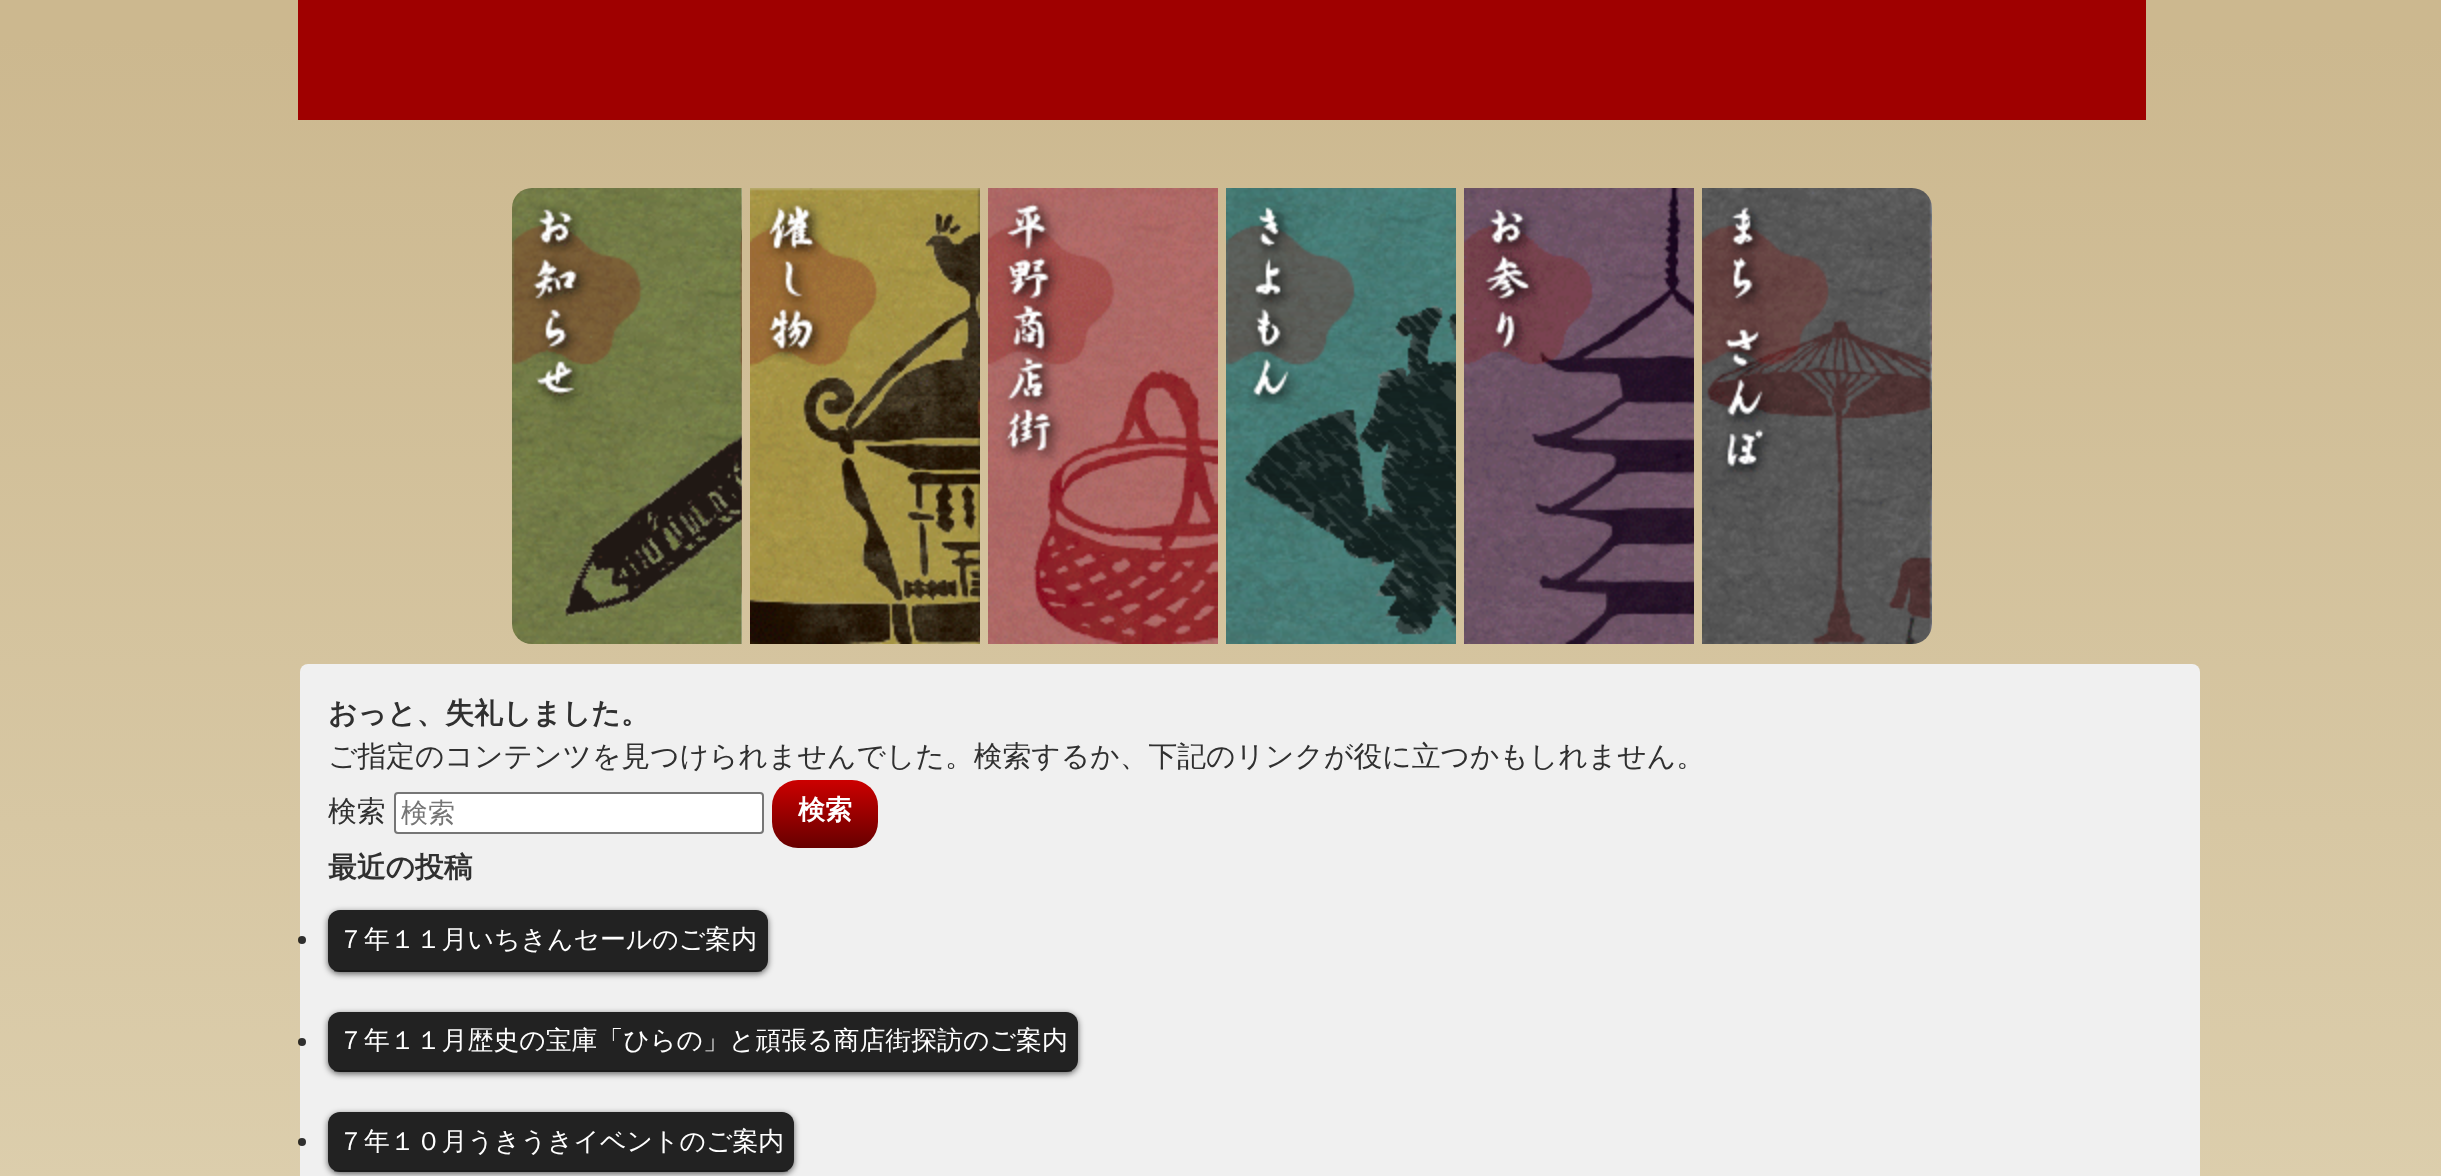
(async () => {
  const canvas = document.querySelector("canvas");
  canvas.width = 2441;
  canvas.height = 1176;
  const ctx = canvas.getContext("2d");
  ctx.miterLimit = 4;
  ctx.fontKerning = "normal";
  async function loadImage(src) {
    const img = new Image();
    img.src = src;
    await img.decode();
    return img;
  }
  let gradient;

  ctx.fillStyle = "#ffffff";
  ctx.fillRect(0, 0, 2441, 1176);
  gradient = ctx.createLinearGradient(1221, 0, 1221, 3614);
  gradient.addColorStop(0.01, "#ccb88f");
  gradient.addColorStop(1, "#fefcea");
  gradient.addColorStop(1, "#ccb88f");
  ctx.fillStyle = gradient;
  ctx.fillRect(0, 0, 2441, 1176);
  ctx.fillStyle = "#9f0000";
  ctx.fillRect(298, 0, 1848, 120);
  ctx.drawImage(await loadImage("img/1.png"), 512, 188, 230, 456);
  ctx.drawImage(await loadImage("img/2.png"), 750, 188, 230, 456);
  ctx.drawImage(await loadImage("img/3.png"), 988, 188, 230, 456);
  ctx.drawImage(await loadImage("img/4.png"), 1226, 188, 230, 456);
  ctx.drawImage(await loadImage("img/5.png"), 1464, 188, 230, 456);
  ctx.drawImage(await loadImage("img/6.png"), 1702, 188, 230, 456);
  ctx.fillStyle = "#f0f0f0";
  ctx.beginPath();
  ctx.roundRect(300, 664, 1900, 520, 8);
  ctx.fill();
  ctx.fillStyle = "#ffffff";
  ctx.beginPath();
  ctx.roundRect(395, 793, 368, 40, 3);
  ctx.fill();
  ctx.strokeStyle = "#767676";
  ctx.lineWidth = 2;
  ctx.stroke();
  gradient = ctx.createLinearGradient(772, 780, 772, 848);
  gradient.addColorStop(0, "#cc0000");
  gradient.addColorStop(1, "#660000");
  ctx.fillStyle = gradient;
  ctx.beginPath();
  ctx.roundRect(772, 780, 106, 68, 26);
  ctx.fill();
  ctx.fillStyle = "rgba(0, 0, 0, 0.8)";
  ctx.beginPath();
  ctx.arc(302, 940, 4, 0, Math.PI * 2);
  ctx.fill();
  ctx.fillStyle = "rgba(0, 0, 0, 0.6)";
  ctx.filter = "blur(3px)";
  ctx.beginPath();
  ctx.roundRect(328, 912, 440, 62, 12);
  ctx.fill();
  ctx.filter = "none";
  ctx.fillStyle = "#222222";
  ctx.beginPath();
  ctx.roundRect(328, 910, 440, 62, 12);
  ctx.fill();
  ctx.fillStyle = "rgba(0, 0, 0, 0.25)";
  ctx.fillRect(334, 970, 428, 2);
  ctx.fillStyle = "rgba(0, 0, 0, 0.8)";
  ctx.beginPath();
  ctx.arc(302, 1042, 4, 0, Math.PI * 2);
  ctx.fill();
  ctx.fillStyle = "rgba(0, 0, 0, 0.6)";
  ctx.filter = "blur(3px)";
  ctx.beginPath();
  ctx.roundRect(328, 1014, 750, 60, 12);
  ctx.fill();
  ctx.filter = "none";
  ctx.fillStyle = "#222222";
  ctx.beginPath();
  ctx.roundRect(328, 1012, 750, 60, 12);
  ctx.fill();
  ctx.fillStyle = "rgba(0, 0, 0, 0.25)";
  ctx.fillRect(334, 1070, 738, 2);
  ctx.fillStyle = "rgba(0, 0, 0, 0.8)";
  ctx.beginPath();
  ctx.arc(302, 1142, 4, 0, Math.PI * 2);
  ctx.fill();
  ctx.fillStyle = "rgba(0, 0, 0, 0.6)";
  ctx.filter = "blur(3px)";
  ctx.beginPath();
  ctx.roundRect(328, 1114, 466, 60, 12);
  ctx.fill();
  ctx.filter = "none";
  ctx.fillStyle = "#222222";
  ctx.beginPath();
  ctx.roundRect(328, 1112, 466, 60, 12);
  ctx.fill();
  ctx.fillStyle = "rgba(0, 0, 0, 0.25)";
  ctx.fillRect(334, 1170, 454, 2);
  ctx.font = "bold 28.8px WenQuanYi Zen Hei";
  ctx.fillStyle = "#303030";
  ctx.fillText("おっと、失礼しました。", 328, 723);
  ctx.font = "500 28.8px WenQuanYi Zen Hei";
  ctx.fillText("ご指定のコンテンツを見つけられませんでした。検索するか、下記のリンクが役に立つかもしれません。", 328, 766);
  ctx.fillText("検索", 328, 821);
  ctx.font = "500 27px WenQuanYi Zen Hei";
  ctx.fillStyle = "#757575";
  ctx.fillText("検索", 401, 822);
  ctx.font = "bold 27px WenQuanYi Zen Hei";
  ctx.fillStyle = "#ffffff";
  ctx.fillText("検索", 798, 819);
  ctx.font = "bold 28.8px WenQuanYi Zen Hei";
  ctx.fillStyle = "#303030";
  ctx.fillText("最近の投稿", 328, 877);
  ctx.font = "500 25.9px WenQuanYi Zen Hei";
  ctx.fillStyle = "#ffffff";
  for (const [text, x, y] of [
    ["７年１１月いちきんセールのご案内", 338, 948],
    ["７年１１月歴史の宝庫「ひらの」と頑張る商店街探訪のご案内", 338, 1049],
    ["７年１０月うきうきイベントのご案内", 338, 1150],
  ]) {
    ctx.fillText(text, x, y);
  }
})();
